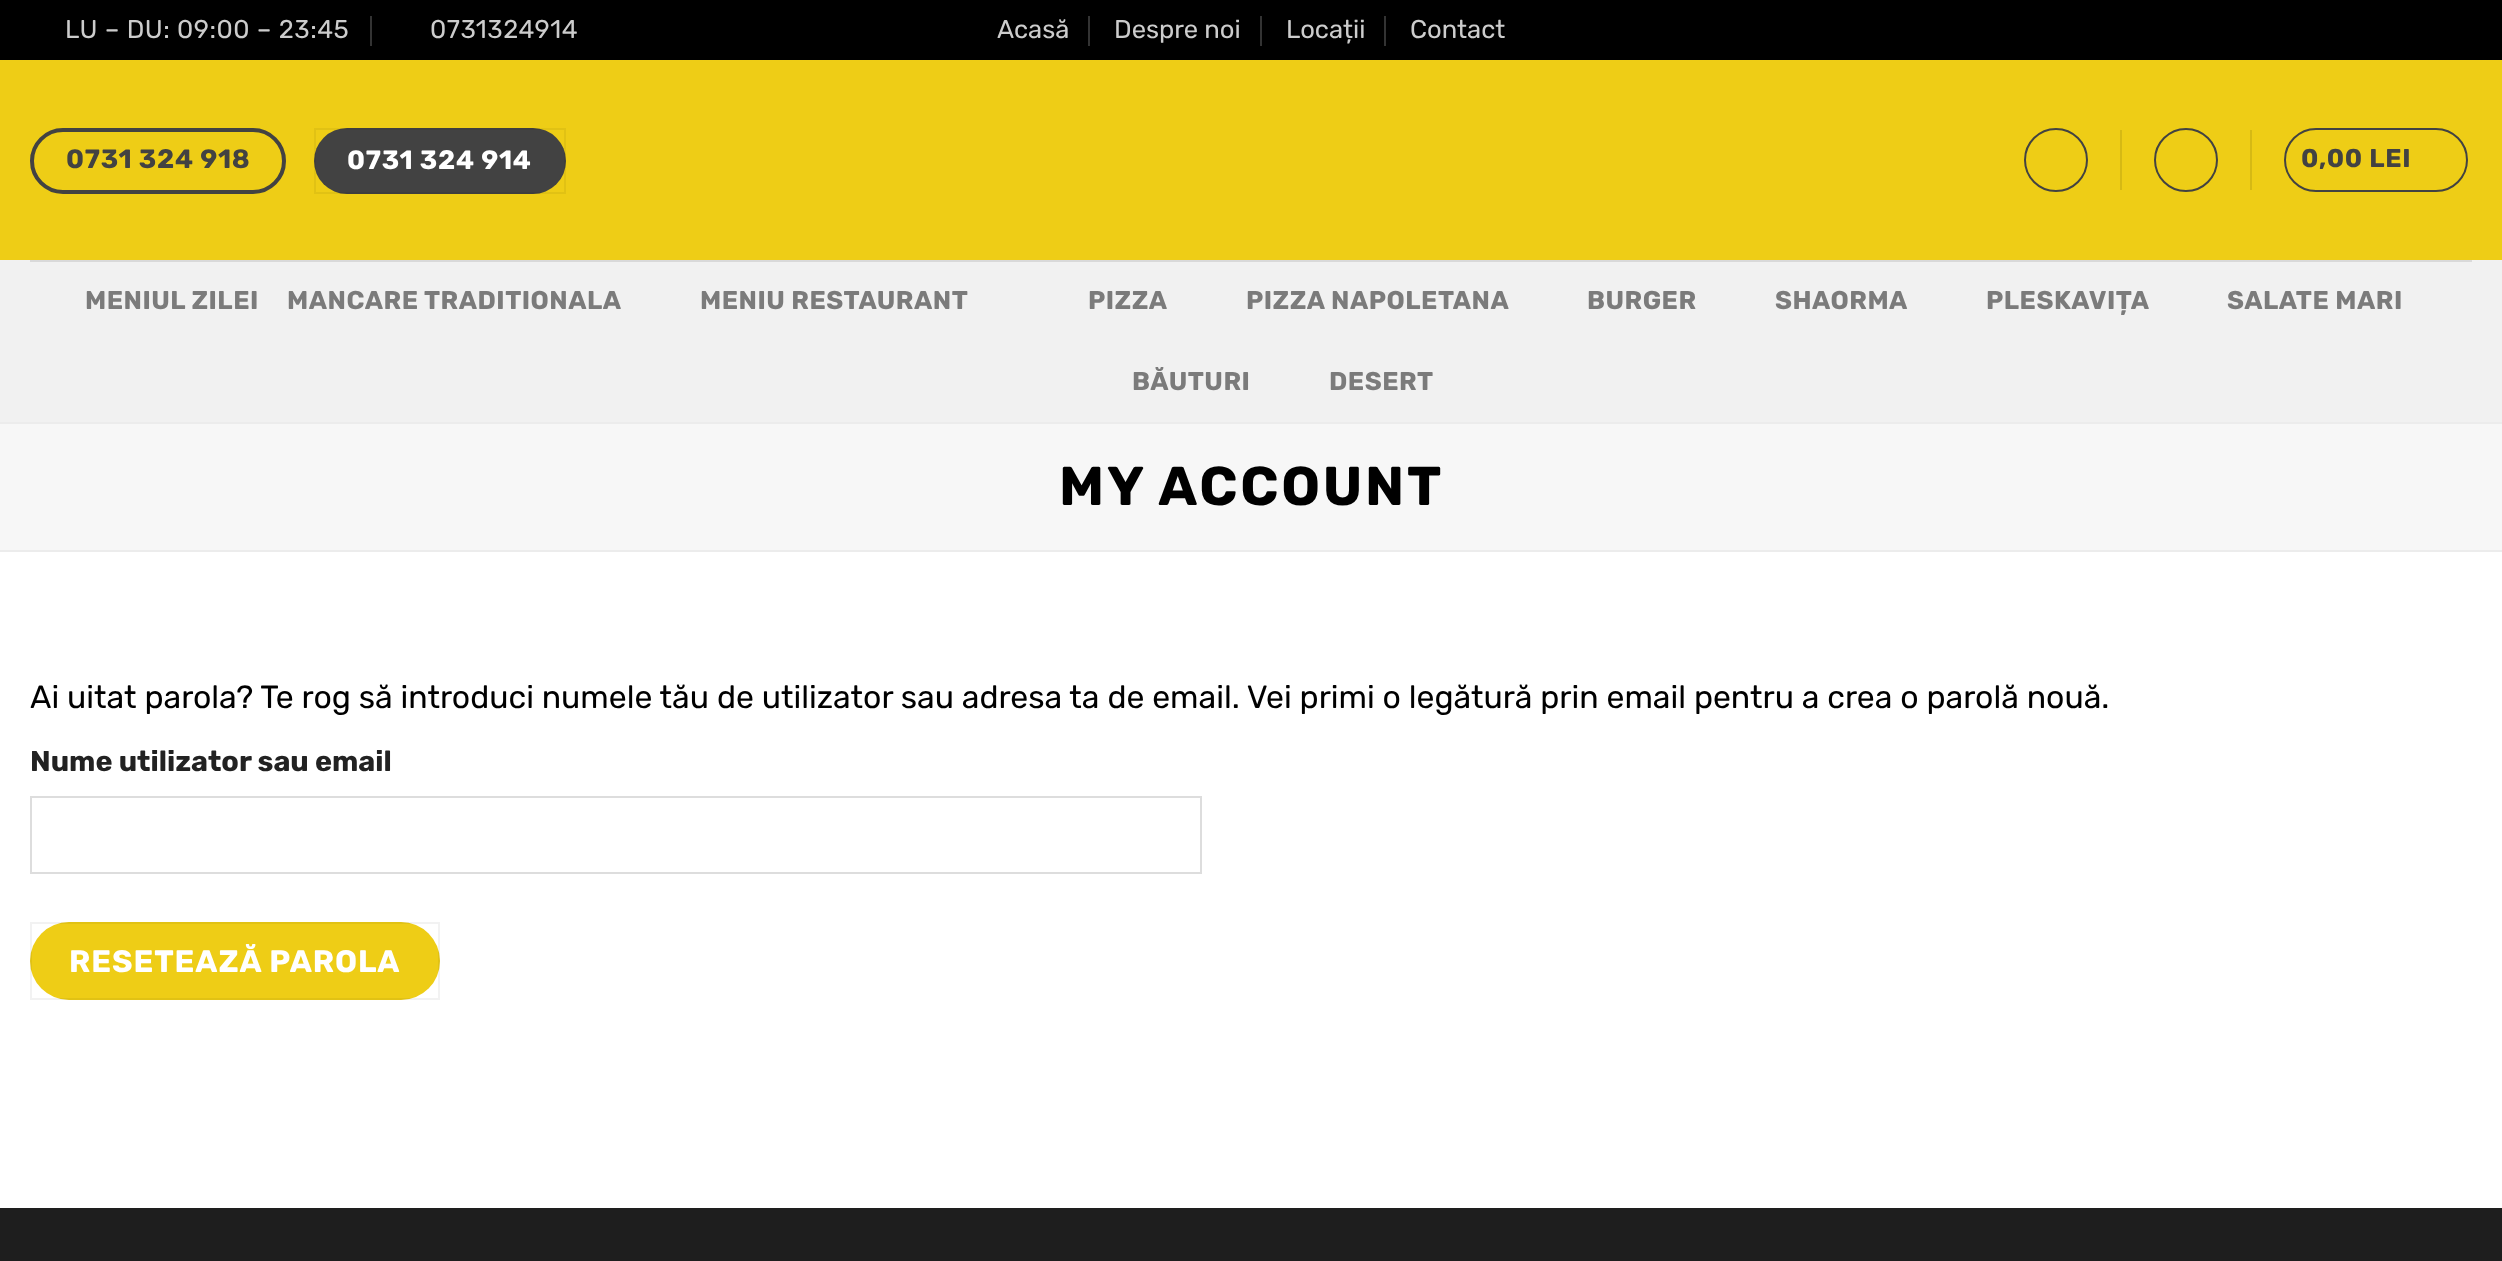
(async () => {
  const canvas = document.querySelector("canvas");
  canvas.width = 2502;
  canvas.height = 1261;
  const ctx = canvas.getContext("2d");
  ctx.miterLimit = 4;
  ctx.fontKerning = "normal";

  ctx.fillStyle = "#ffffff";
  ctx.fillRect(0, 0, 2502, 1261);
  for (const [x, y, w, h, color] of [
    [0, 0, 2502, 60, "#000000"],
    [370, 16, 2, 30, "#333333"],
    [1088, 16, 2, 30, "#333333"],
    [1260, 16, 2, 30, "#333333"],
    [1384, 16, 2, 30, "#333333"],
    [0, 60, 2502, 200, "#eecd16"],
  ]) {
    ctx.fillStyle = color;
    ctx.fillRect(x, y, w, h);
  }
  ctx.beginPath();
  ctx.roundRect(32, 130, 252, 62, 31);
  ctx.strokeStyle = "#424242";
  ctx.lineWidth = 4;
  ctx.stroke();
  ctx.fillStyle = "#424242";
  ctx.beginPath();
  ctx.roundRect(314, 128, 252, 66, 33);
  ctx.fill();
  ctx.strokeStyle = "rgba(0, 0, 0, 0.05)";
  ctx.lineWidth = 2;
  ctx.strokeRect(315, 129, 250, 64);
  ctx.beginPath();
  ctx.arc(2056, 160, 31, 0, Math.PI * 2);
  ctx.strokeStyle = "#424242";
  ctx.stroke();
  ctx.fillStyle = "#d6b914";
  ctx.fillRect(2120, 130, 2, 60);
  ctx.beginPath();
  ctx.arc(2186, 160, 31, 0, Math.PI * 2);
  ctx.stroke();
  ctx.fillRect(2250, 130, 2, 60);
  ctx.beginPath();
  ctx.roundRect(2285, 129, 182, 62, 31);
  ctx.stroke();
  for (const [x, y, w, h, color] of [
    [0, 260, 2502, 162, "#f1f1f1"],
    [30, 260, 2442, 2, "#d9d9d9"],
    [0, 424, 2502, 126, "#f7f7f7"],
    [0, 422, 2502, 2, "#ececec"],
    [0, 550, 2502, 2, "#ececec"],
  ]) {
    ctx.fillStyle = color;
    ctx.fillRect(x, y, w, h);
  }
  ctx.strokeStyle = "#dddddd";
  ctx.strokeRect(31, 797, 1170, 76);
  ctx.fillStyle = "#eecd16";
  ctx.beginPath();
  ctx.roundRect(30, 922, 410, 78, 39);
  ctx.fill();
  ctx.strokeStyle = "rgba(0, 0, 0, 0.05)";
  ctx.strokeRect(31, 923, 408, 76);
  ctx.fillStyle = "#1e1e1e";
  ctx.fillRect(0, 1208, 2502, 53);
  ctx.letterSpacing = "0.5px";
  ctx.font = "25.6px Rubik";
  ctx.fillStyle = "#cccccc";
  ctx.fillText("LU – DU: 09:00 – 23:45", 65, 38);
  ctx.fillText("0731324914", 430, 38);
  ctx.letterSpacing = "0px";
  for (const [text, x, y] of [
    ["Acasă", 997, 38],
    ["Despre noi", 1114, 38],
    ["Locații", 1286, 38],
    ["Contact", 1410, 38],
  ]) {
    ctx.fillText(text, x, y);
  }
  ctx.letterSpacing = "0.75px";
  ctx.font = "bold 26.5px Rubik";
  ctx.fillStyle = "#424242";
  ctx.fillText("0731 324 918", 66, 168);
  ctx.fillStyle = "#ffffff";
  ctx.fillText("0731 324 914", 347, 169);
  ctx.font = "bold 25.6px Rubik";
  ctx.fillStyle = "#424242";
  ctx.fillText("0,00 LEI", 2301, 167);
  ctx.letterSpacing = "0.5px";
  ctx.fillStyle = "#7b7b7b";
  for (const [text, x, y] of [
    ["MENIUL ZILEI", 85, 309],
    ["MANCARE TRADITIONALA", 287, 309],
    ["MENIU RESTAURANT", 700, 309],
    ["PIZZA", 1088, 309],
    ["PIZZA NAPOLETANA", 1246, 309],
    ["BURGER", 1587, 309],
    ["SHAORMA", 1775, 309],
    ["PLESKAVIȚA", 1986, 309],
    ["SALATE MARI", 2227, 309],
    ["BĂUTURI", 1132, 390],
    ["DESERT", 1329, 390],
  ]) {
    ctx.fillText(text, x, y);
  }
  ctx.letterSpacing = "2.75px";
  ctx.font = "bold 54.5px Rubik";
  ctx.fillStyle = "#000000";
  ctx.fillText("MY ACCOUNT", 1059, 505);
  ctx.letterSpacing = "0px";
  ctx.font = "32px Rubik";
  ctx.fillText("Ai uitat parola? Te rog să introduci numele tău de utilizator sau adresa ta de email. Vei primi o legătură prin email pentru a crea o parolă nouă.", 30, 708);
  ctx.font = "bold 28.75px Rubik";
  ctx.fillStyle = "#222222";
  ctx.fillText("Nume utilizator sau email", 30, 771);
  ctx.letterSpacing = "0.9px";
  ctx.font = "bold 31px Rubik";
  ctx.fillStyle = "#ffffff";
  ctx.fillText("RESETEAZĂ PAROLA", 69, 972);
})();
